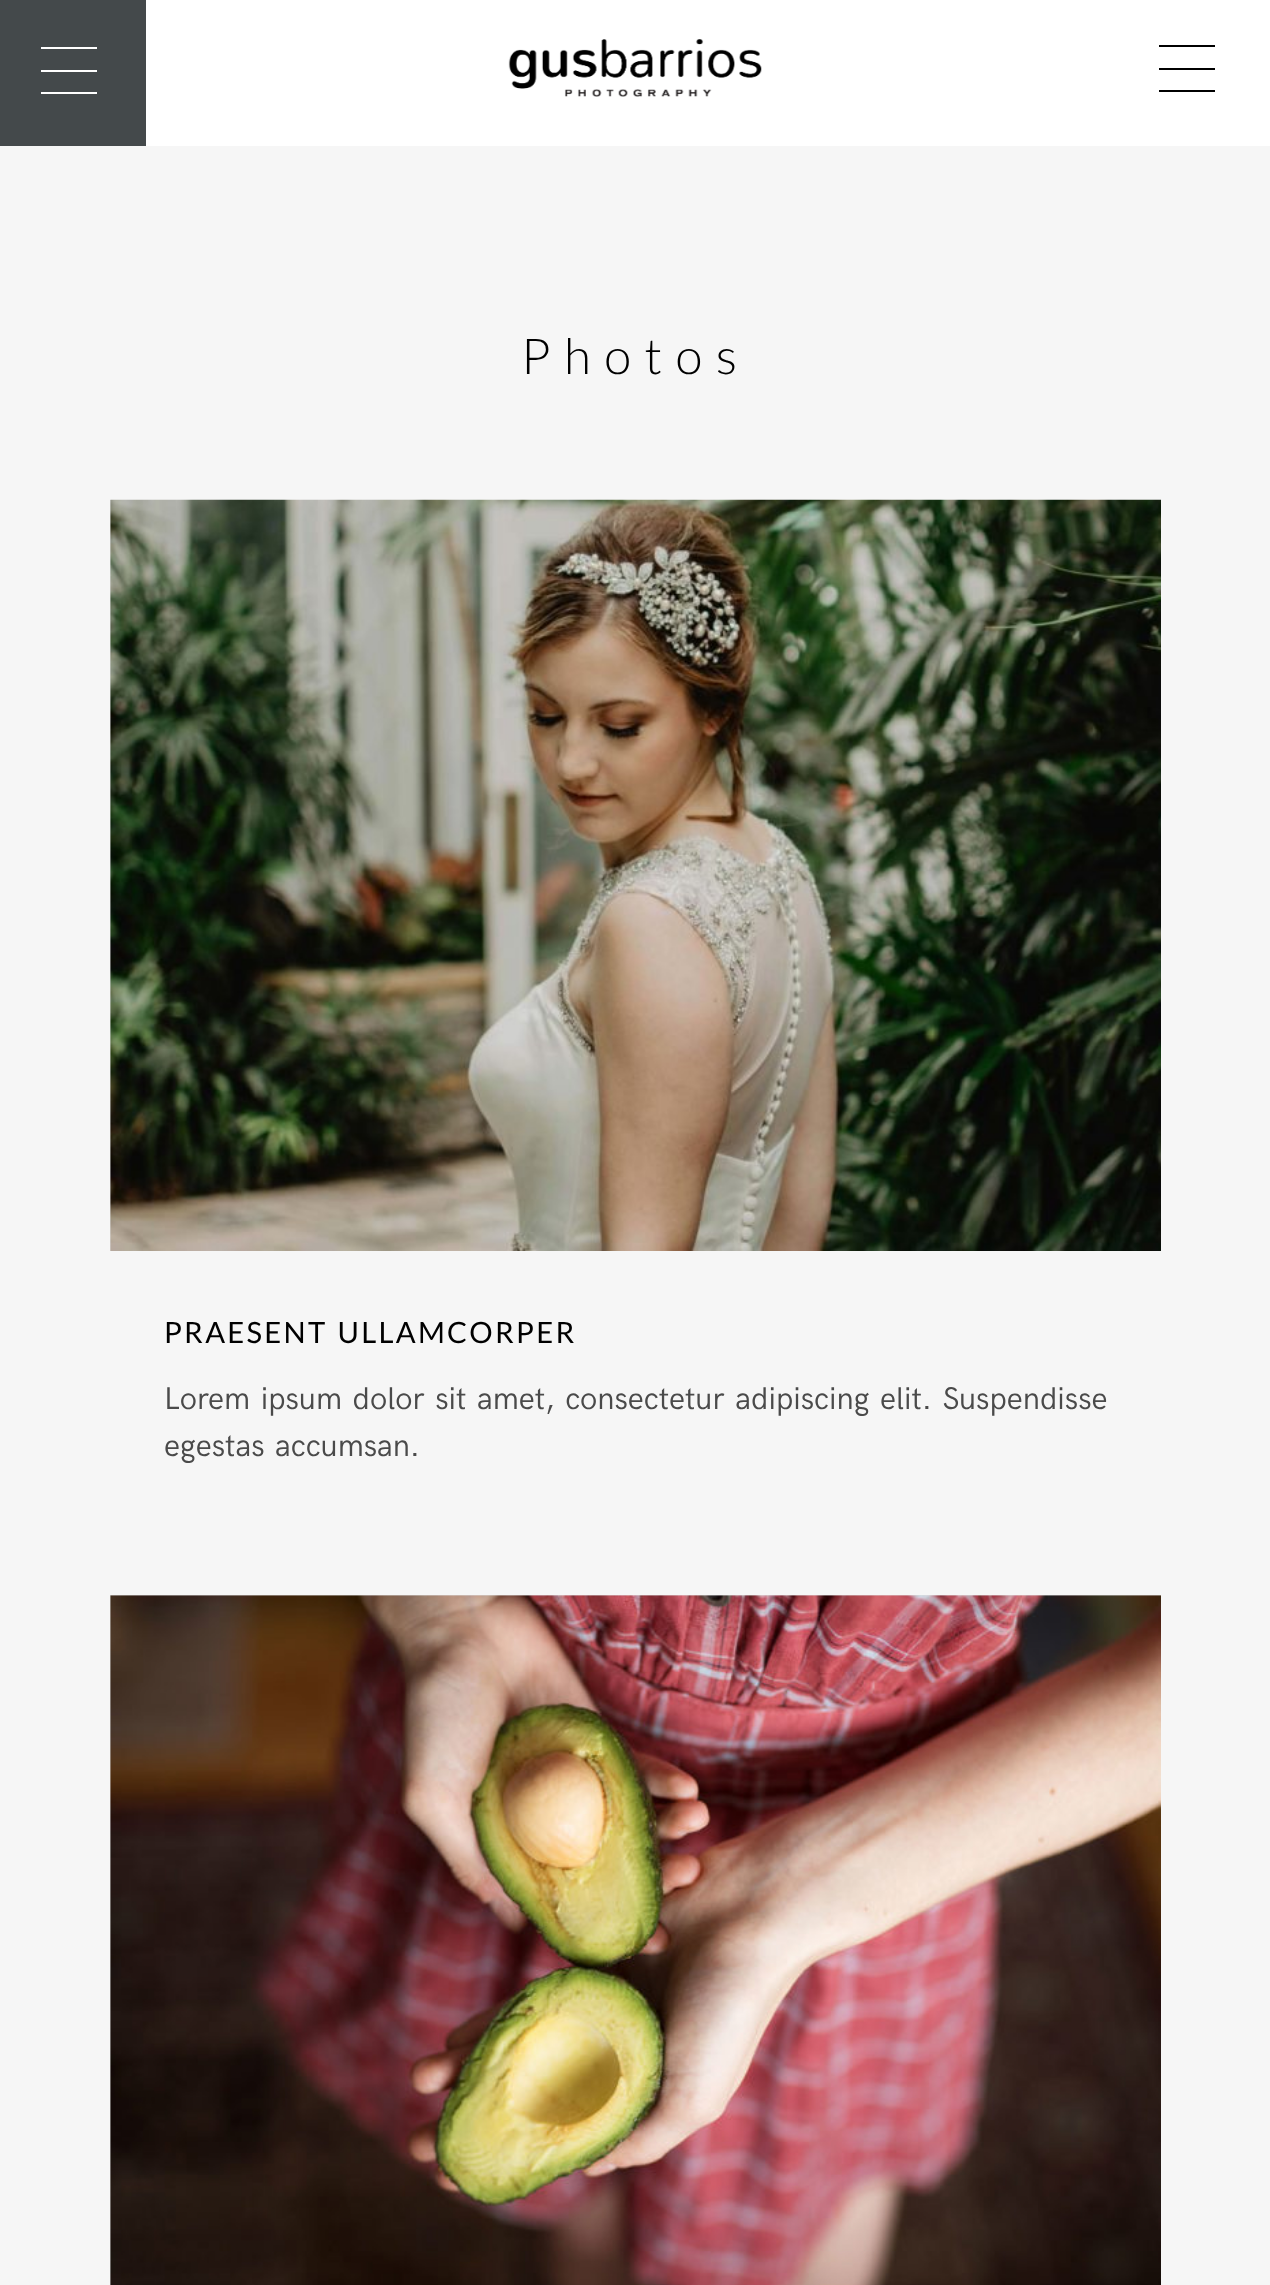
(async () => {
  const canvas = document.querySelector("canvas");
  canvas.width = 1270;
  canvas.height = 2285;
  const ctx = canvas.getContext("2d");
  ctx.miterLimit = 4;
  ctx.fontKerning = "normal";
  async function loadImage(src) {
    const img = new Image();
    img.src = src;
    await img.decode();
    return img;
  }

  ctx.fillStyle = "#f6f6f6";
  ctx.fillRect(0, 0, 1270, 2285);
  for (const [x, y, w, h, color] of [
    [0, 0, 146, 146, "#44494b"],
    [41, 70, 56, 2, "#ffffff"],
    [41, 47, 56, 2, "#ffffff"],
    [41, 92, 56, 2, "#ffffff"],
    [146, 0, 1124, 146, "#ffffff"],
  ]) {
    ctx.fillStyle = color;
    ctx.fillRect(x, y, w, h);
  }
  ctx.drawImage(await loadImage("img/1.png"), 508, 39, 254, 58);
  for (const [x, y, w, h, color] of [
    [1159, 68, 56, 2, "#000000"],
    [1159, 45, 56, 2, "#000000"],
    [1159, 90, 56, 2, "#000000"],
    [110, 500, 1, 751, "#dddddd"],
  ]) {
    ctx.fillStyle = color;
    ctx.fillRect(x, y, w, h);
  }
  ctx.drawImage(await loadImage("img/2.png"), 110, 499, 1051, 752);
  ctx.fillRect(110, 1595, 1051, 690);
  ctx.drawImage(await loadImage("img/3.png"), 110, 1595, 1051, 690);
  ctx.letterSpacing = "13.5px";
  ctx.font = "300 49.5px Lato";
  ctx.fillStyle = "#000000";
  ctx.fillText("Photos", 521, 374);
  ctx.letterSpacing = "2.25px";
  ctx.wordSpacing = "2.25px";
  ctx.font = "29.25px Lato";
  ctx.fillText("PRAESENT ULLAMCORPER", 164, 1343);
  ctx.letterSpacing = "0px";
  ctx.font = "31.5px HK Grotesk";
  ctx.fillStyle = "#4a4a4a";
  ctx.fillText("Lorem ipsum dolor sit amet, consectetur adipiscing elit. Suspendisse", 164, 1409);
  ctx.fillText("egestas accumsan.", 164, 1456);
})();
